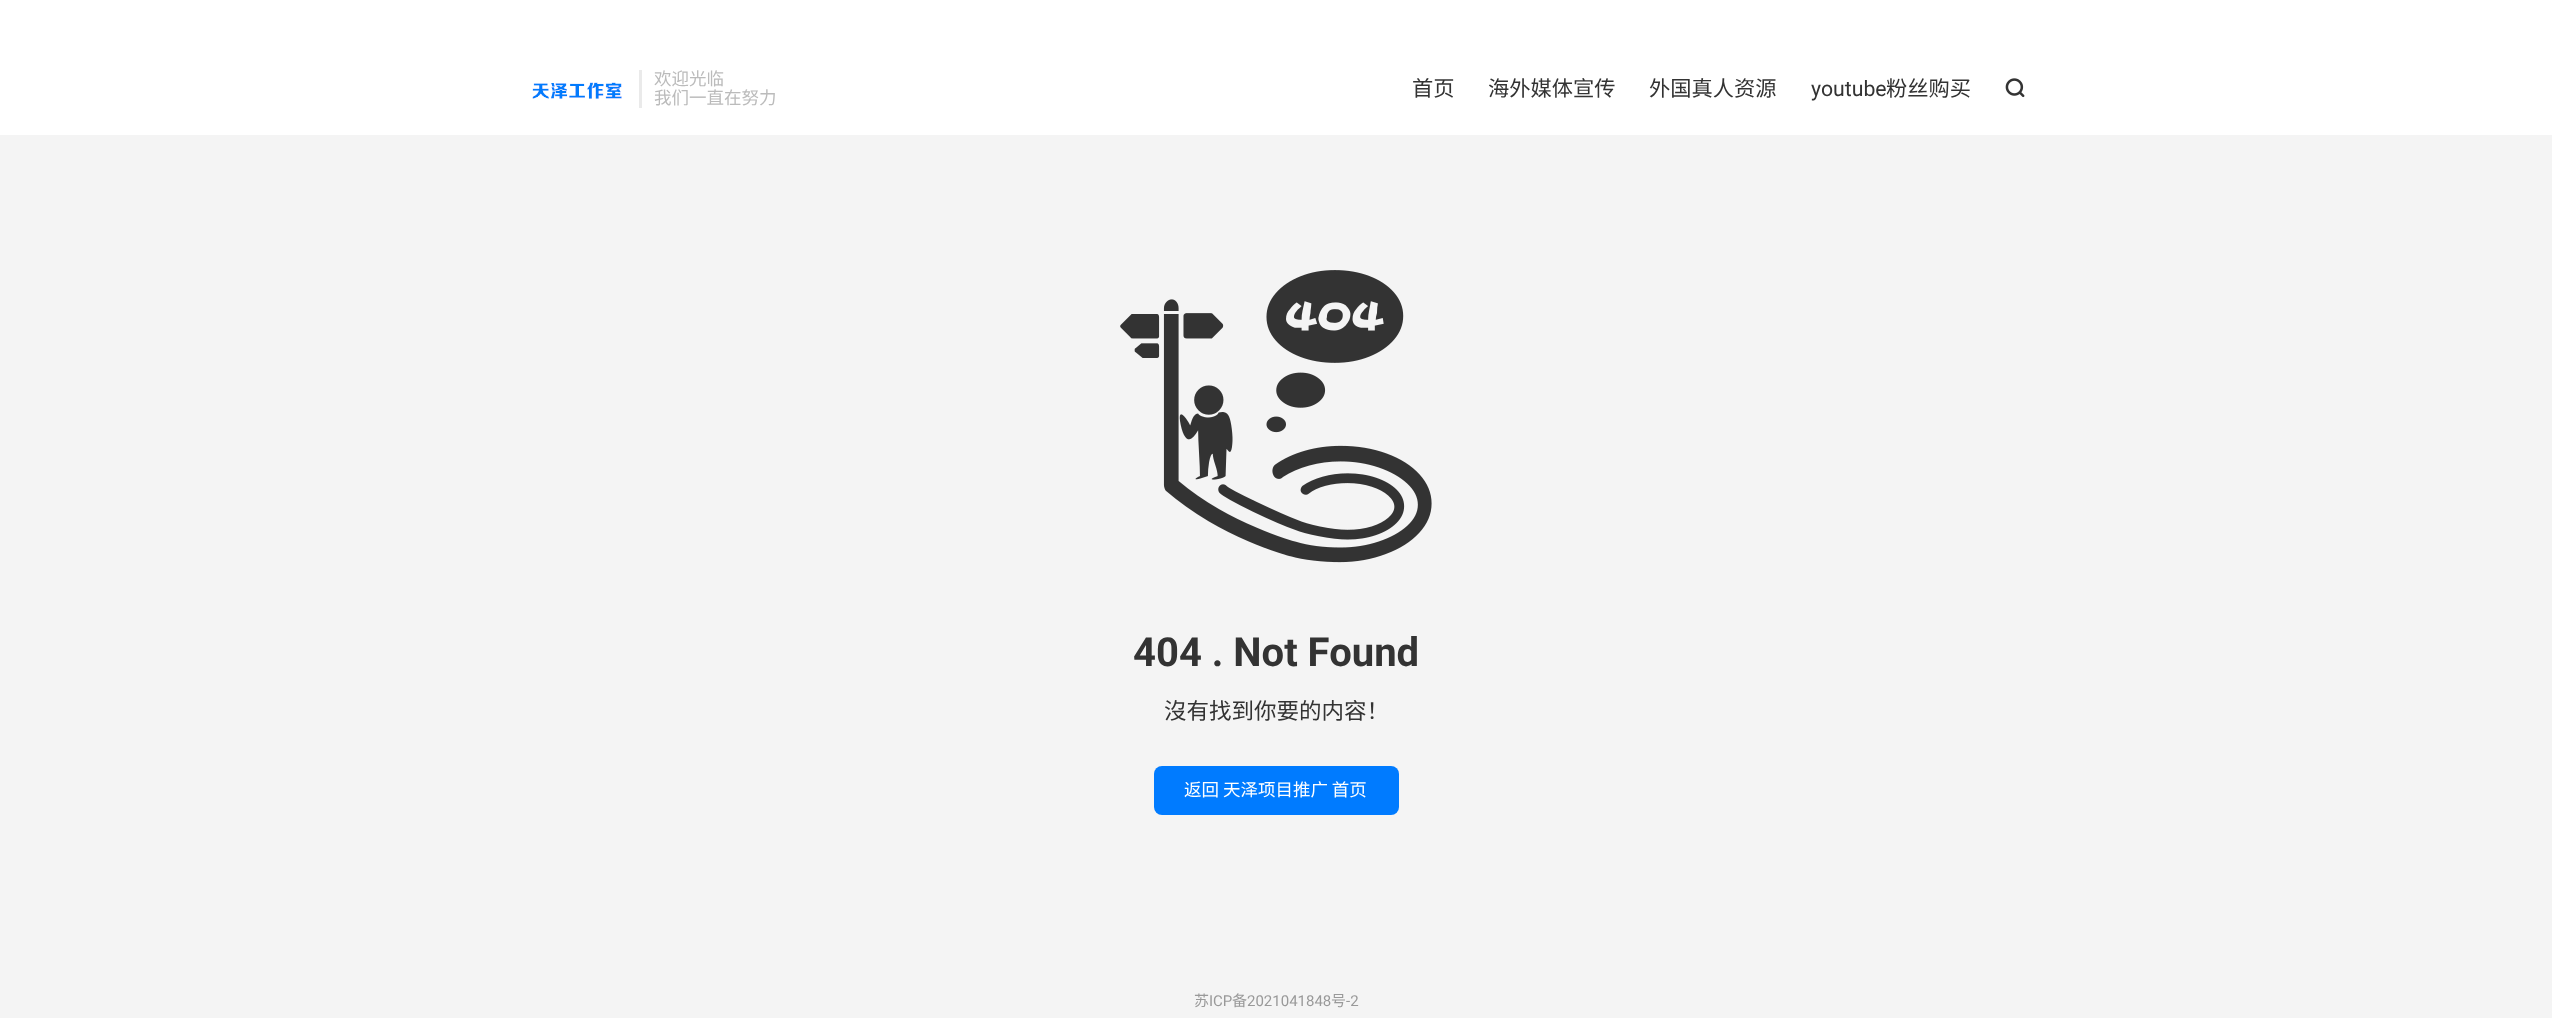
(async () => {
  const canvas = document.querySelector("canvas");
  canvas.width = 2552;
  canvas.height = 1018;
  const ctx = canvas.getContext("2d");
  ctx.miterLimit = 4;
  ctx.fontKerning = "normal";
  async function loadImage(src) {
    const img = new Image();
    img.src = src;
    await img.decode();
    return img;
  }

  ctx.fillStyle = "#f4f4f4";
  ctx.fillRect(0, 0, 2552, 1018);
  ctx.fillStyle = "#ffffff";
  ctx.fillRect(0, 0, 2552, 135);
  ctx.drawImage(await loadImage("img/1.png"), 532, 82, 90, 17);
  ctx.fillStyle = "#eaeaea";
  ctx.fillRect(639, 70, 3, 38);
  ctx.drawImage(await loadImage("img/2.png"), 2005, 78, 20, 20);
  ctx.drawImage(await loadImage("img/3.png"), 1120, 270, 312, 293);
  ctx.fillStyle = "#007bff";
  ctx.beginPath();
  ctx.roundRect(1154, 766, 245, 49, 8);
  ctx.fill();
  ctx.font = "17.5px Noto Sans CJK SC";
  ctx.fillStyle = "#bbbbbb";
  ctx.fillText("欢迎光临", 654, 85);
  ctx.fillText("我们一直在努力", 654, 104);
  ctx.font = "21.25px Noto Sans CJK SC";
  ctx.fillStyle = "#333333";
  for (const [text, x, y] of [
    ["首页", 1412, 96],
    ["海外媒体宣传", 1488, 96],
    ["外国真人资源", 1649, 96],
  ]) {
    ctx.fillText(text, x, y);
  }
  ctx.font = "21.25px Roboto";
  ctx.fillText("youtube", 1811, 96);
  ctx.font = "21.25px Noto Sans CJK SC";
  ctx.fillText("粉丝购买", 1886, 96);
  ctx.font = "bold 40px Roboto";
  ctx.fillText("404 . Not Found", 1133, 666);
  ctx.font = "22.5px Noto Sans CJK SC";
  ctx.fillText("沒有找到你要的内容！", 1164, 719);
  ctx.font = "17.5px Noto Sans CJK SC";
  ctx.fillStyle = "#ffffff";
  ctx.fillText("返回 天泽项目推广 首页", 1184, 796);
  ctx.font = "15px Noto Sans CJK SC";
  ctx.fillStyle = "#999999";
  ctx.fillText("苏", 1194, 1006);
  ctx.font = "15px Roboto";
  ctx.fillText("ICP", 1209, 1006);
  ctx.font = "15px Noto Sans CJK SC";
  ctx.fillText("备", 1232, 1006);
  ctx.font = "15px Roboto";
  ctx.fillText("2021041848", 1247, 1006);
  ctx.font = "15px Noto Sans CJK SC";
  ctx.fillText("号", 1331, 1006);
  ctx.font = "15px Roboto";
  ctx.fillText("-2", 1346, 1006);
})();
